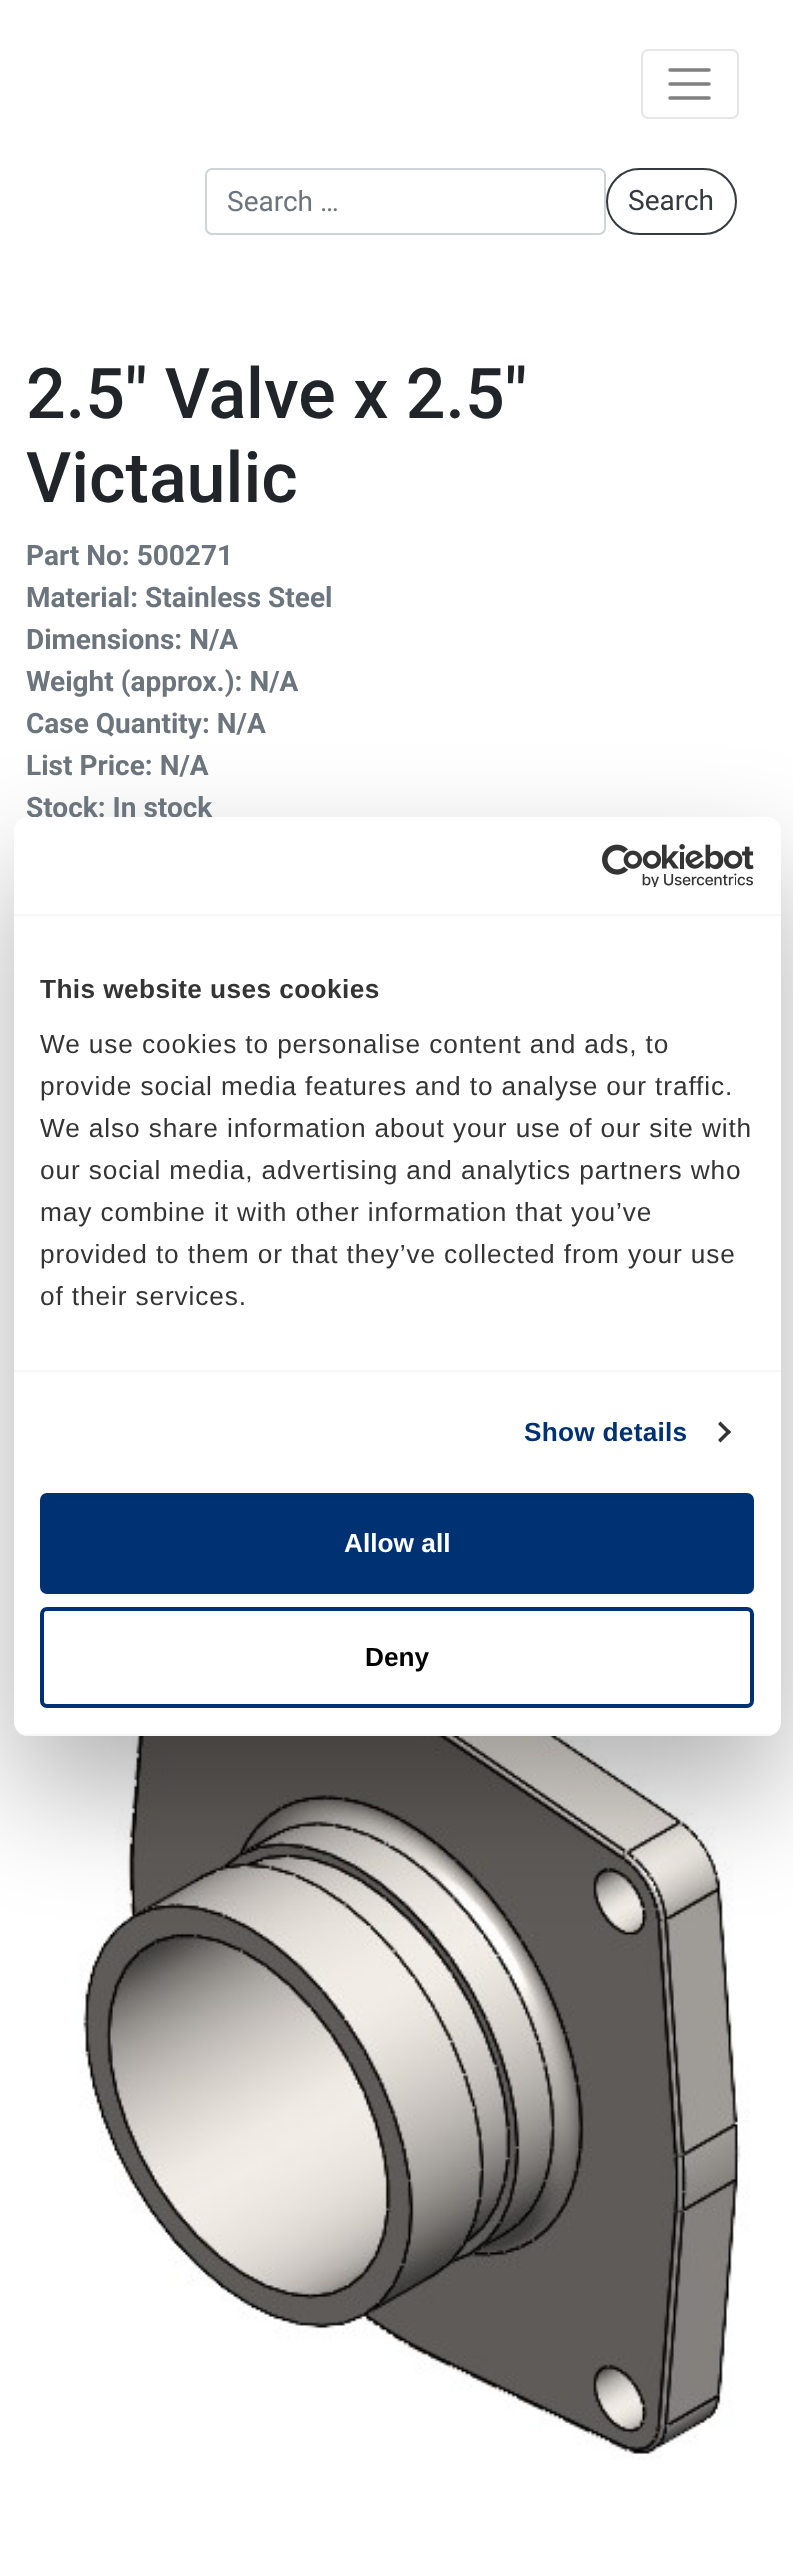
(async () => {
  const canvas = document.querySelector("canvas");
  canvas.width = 793;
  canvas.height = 2552;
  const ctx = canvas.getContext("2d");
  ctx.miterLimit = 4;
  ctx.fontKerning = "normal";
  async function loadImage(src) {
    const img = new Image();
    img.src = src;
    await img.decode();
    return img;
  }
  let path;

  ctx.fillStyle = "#ffffff";
  ctx.fillRect(0, 0, 793, 2552);
  ctx.beginPath();
  ctx.roundRect(642, 50, 96, 68, 6);
  ctx.strokeStyle = "#e6e6e6";
  ctx.lineWidth = 2;
  ctx.stroke();
  path = new Path2D("M670 70H709M670 84H709M670 98H709");
  ctx.strokeStyle = "#808080";
  ctx.lineWidth = 3.5;
  ctx.lineCap = "round";
  ctx.stroke(path);
  ctx.beginPath();
  ctx.roundRect(206, 169, 399, 65, 6);
  ctx.strokeStyle = "#ced4da";
  ctx.lineWidth = 2;
  ctx.stroke();
  ctx.beginPath();
  ctx.roundRect(607, 169, 129, 65, 32.5);
  ctx.strokeStyle = "#343a40";
  ctx.stroke();
  ctx.drawImage(await loadImage("img/1.png"), 27, 1735, 723, 725);
  ctx.fillStyle = "rgba(0, 0, 0, 0.3)";
  ctx.filter = "blur(59.5px)";
  ctx.beginPath();
  ctx.roundRect(14, 873, 767, 919, 14);
  ctx.fill();
  ctx.filter = "none";
  ctx.font = "28px Roboto";
  ctx.fillStyle = "#6c757d";
  ctx.fillText("Search …", 227, 211);
  ctx.fillStyle = "#343a40";
  ctx.fillText("Search", 628, 210);
  ctx.font = "500 70px Roboto";
  ctx.fillStyle = "#212529";
  ctx.fillText("2.5″ Valve x 2.5″", 26, 418);
  ctx.fillText("Victaulic", 26, 502);
  ctx.font = "bold 28px Roboto";
  ctx.fillStyle = "#6c757d";
  for (const [text, x, y] of [
    ["Part No: 500271", 26, 565],
    ["Material: Stainless Steel", 26, 607],
    ["Dimensions: N/A", 26, 649],
    ["Weight (approx.): N/A", 26, 691],
    ["Case Quantity: N/A", 26, 733],
    ["List Price: N/A", 26, 775],
    ["Stock: In stock", 26, 817],
  ]) {
    ctx.fillText(text, x, y);
  }
  ctx.fillStyle = "#ffffff";
  ctx.beginPath();
  ctx.roundRect(14, 817, 767, 919, 14);
  ctx.fill();
  ctx.fillStyle = "#f7f7f7";
  ctx.fillRect(14, 914, 767, 2);
  ctx.drawImage(await loadImage("img/2.png"), 602, 844, 152, 43);
  ctx.fillRect(14, 1370, 767, 2);
  ctx.letterSpacing = "0.4px";
  ctx.font = "bold 26.25px Liberation Sans";
  ctx.fillStyle = "#343434";
  ctx.fillText("This website uses cookies", 40, 998);
  ctx.letterSpacing = "0.88px";
  ctx.font = "26.25px Liberation Sans";
  for (const [text, x, y] of [
    ["We use cookies to personalise content and ads, to", 40, 1053],
    ["provide social media features and to analyse our traffic.", 40, 1095],
    ["We also share information about your use of our site with", 40, 1137],
    ["our social media, advertising and analytics partners who", 40, 1179],
    ["may combine it with other information that you’ve", 40, 1221],
    ["provided to them or that they’ve collected from your use", 40, 1263],
    ["of their services.", 40, 1305],
  ]) {
    ctx.fillText(text, x, y);
  }
  ctx.letterSpacing = "0.25px";
  ctx.font = "bold 26.25px Liberation Sans";
  ctx.fillStyle = "#003273";
  ctx.fillText("Show details", 524, 1441);
  ctx.fillStyle = "#343434";
  path = new Path2D("M720.5 1421.5L731 1432L728.5 1434.5L718 1424Z");
  ctx.fill(path);
  path = new Path2D("M728.5 1429.5L731 1432L720.5 1442.5L718 1440Z");
  ctx.fill(path);
  ctx.save();
  ctx.beginPath();
  ctx.roundRect(14, 817, 767, 919, 14);
  ctx.clip();
  ctx.fillStyle = "#f7f7f7";
  ctx.fillRect(14, 1734, 767, 2);
  ctx.restore();
  ctx.fillStyle = "#003273";
  ctx.beginPath();
  ctx.roundRect(42, 1495, 710, 97, 5);
  ctx.fill();
  ctx.strokeStyle = "#003273";
  ctx.lineWidth = 4;
  ctx.stroke();
  ctx.letterSpacing = "0px";
  ctx.fillStyle = "#ffffff";
  ctx.fillText("Allow all", 344, 1552);
  ctx.beginPath();
  ctx.roundRect(42, 1609, 710, 97, 5);
  ctx.stroke();
  ctx.fillStyle = "#000000";
  ctx.fillText("Deny", 365, 1666);
})();
